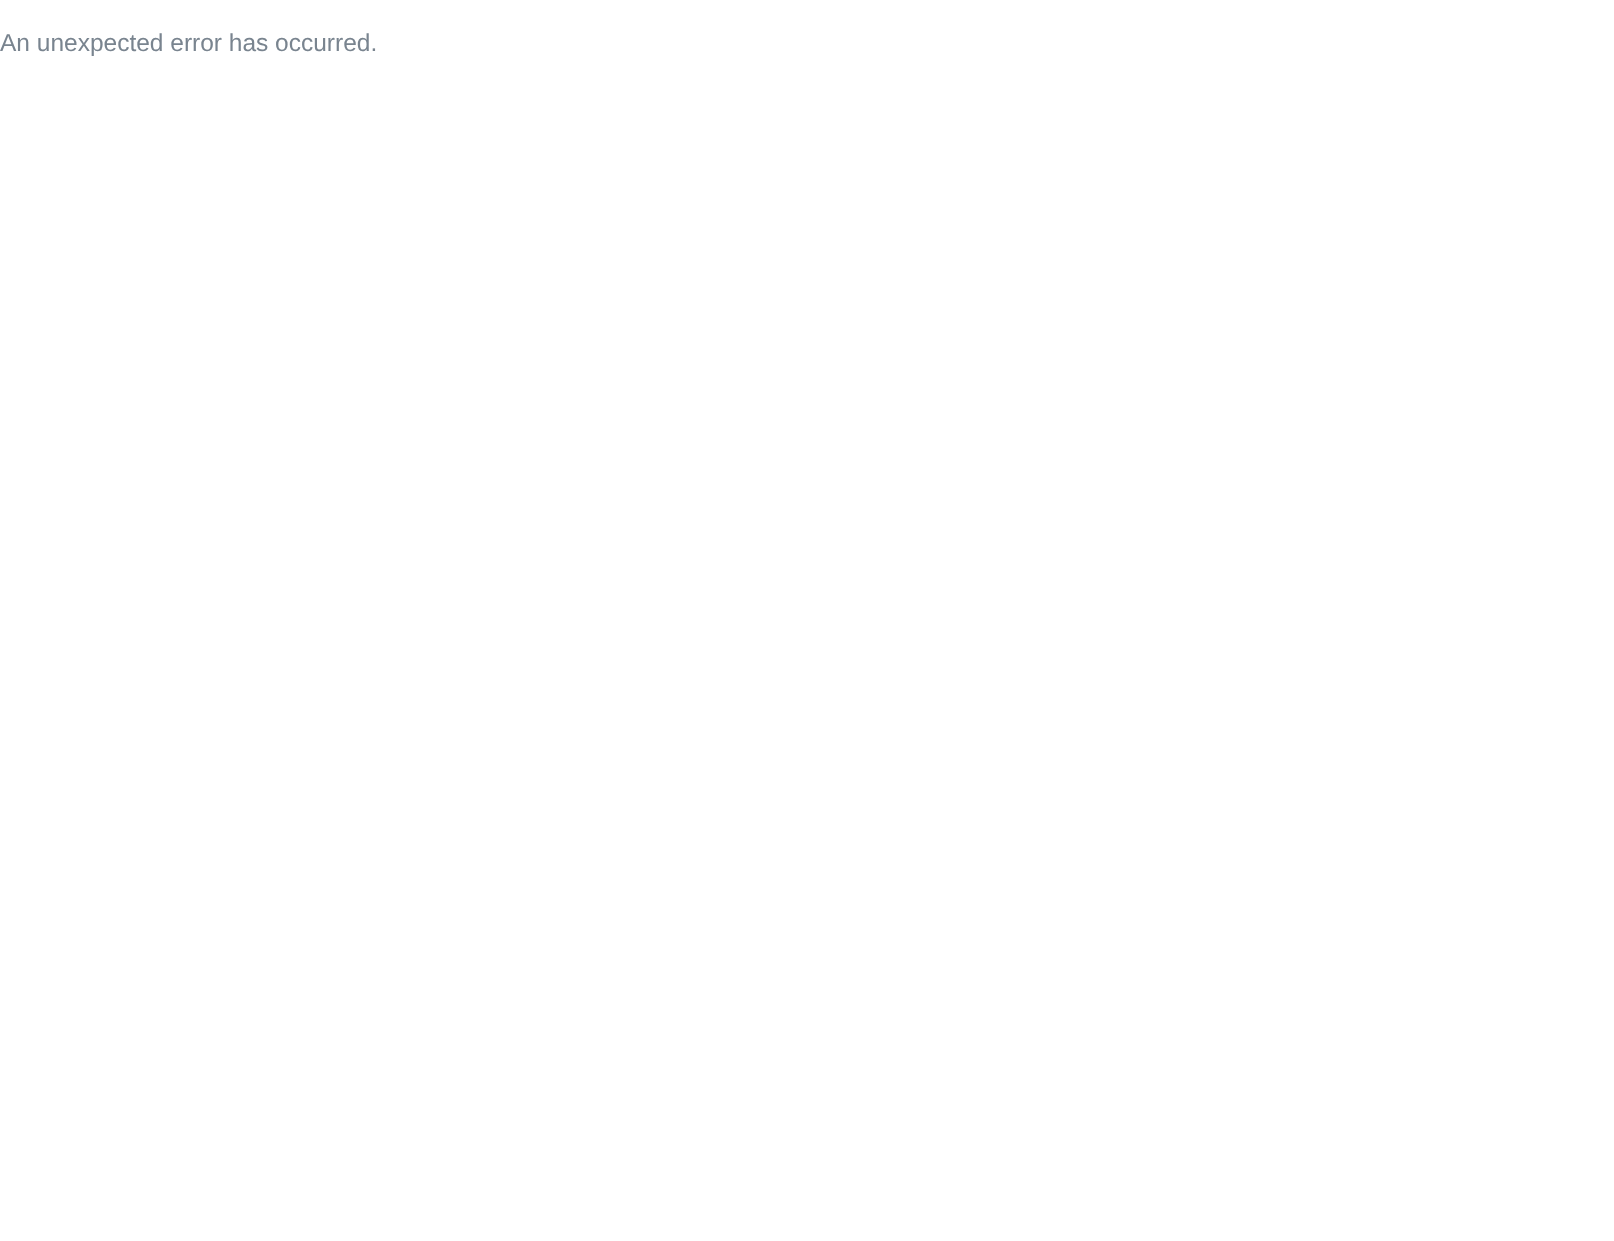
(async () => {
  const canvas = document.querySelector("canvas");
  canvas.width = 1614;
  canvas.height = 1241;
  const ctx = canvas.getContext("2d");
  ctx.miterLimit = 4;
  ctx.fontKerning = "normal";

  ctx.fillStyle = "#ffffff";
  ctx.fillRect(0, 0, 1614, 1241);
  ctx.font = "24.5px Liberation Sans";
  ctx.fillStyle = "#79848f";
  ctx.fillText("An unexpected error has occurred.", 0, 51);
})();
